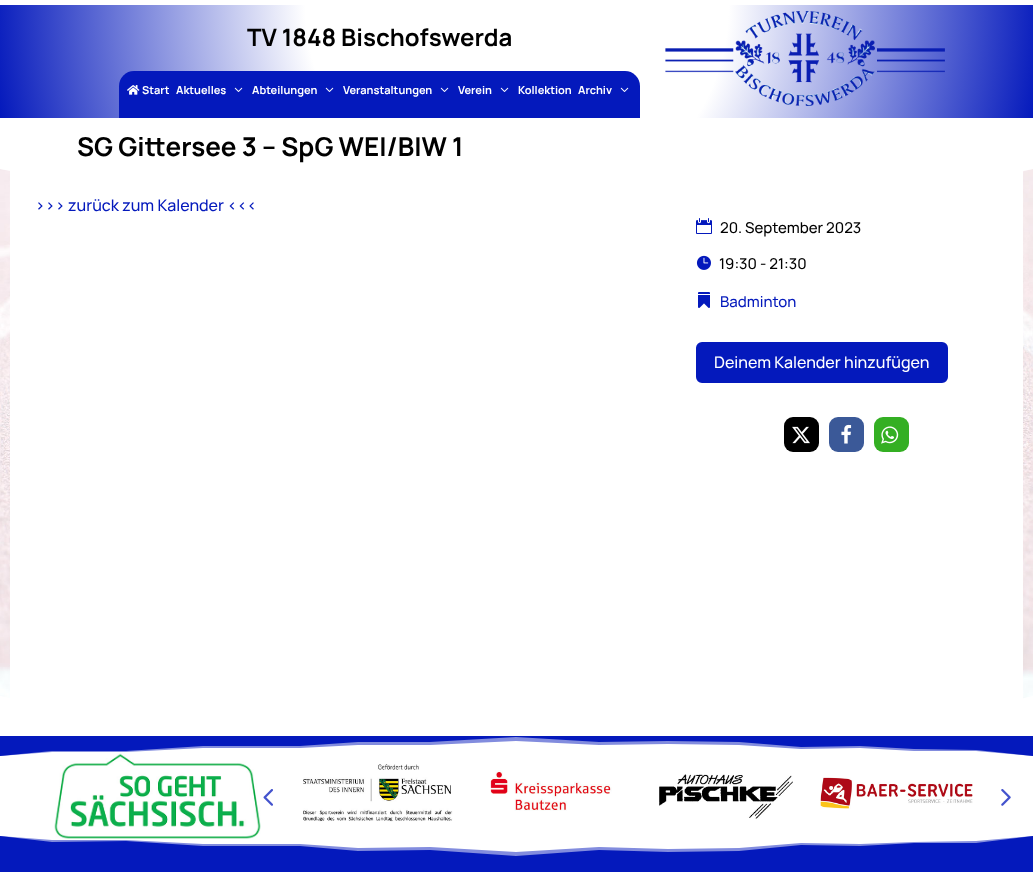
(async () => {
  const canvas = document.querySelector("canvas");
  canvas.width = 1033;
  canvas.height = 872;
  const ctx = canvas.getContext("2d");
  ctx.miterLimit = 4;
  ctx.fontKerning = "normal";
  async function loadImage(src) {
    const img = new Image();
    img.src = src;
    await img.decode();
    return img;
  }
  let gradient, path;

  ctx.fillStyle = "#ffffff";
  ctx.fillRect(0, 0, 1033, 872);
  gradient = ctx.createRadialGradient(517, 5, 0, 517, 5, 529);
  gradient.addColorStop(0.4, "#ffffff");
  gradient.addColorStop(1, "#0419bc");
  ctx.fillStyle = gradient;
  ctx.fillRect(0, 5, 1033, 113);
  ctx.fillStyle = "#0419bc";
  ctx.beginPath();
  ctx.roundRect(119, 71, 521, 47, [15, 15, 0, 0]);
  ctx.fill();
  ctx.drawImage(await loadImage("img/1.png"), 127, 85, 13, 10);
  ctx.drawImage(await loadImage("img/2.png"), 234, 87, 9, 5);
  ctx.drawImage(await loadImage("img/2.png"), 325, 87, 9, 5);
  ctx.drawImage(await loadImage("img/2.png"), 440, 87, 9, 5);
  ctx.drawImage(await loadImage("img/2.png"), 500, 87, 9, 5);
  ctx.drawImage(await loadImage("img/2.png"), 620, 87, 9, 5);
  ctx.drawImage(await loadImage("img/3.png"), 665, 11, 280, 95);
  ctx.drawImage(await loadImage("img/4.png"), 0, 169, 1033, 530);
  ctx.fillStyle = "#ffffff";
  ctx.fillRect(10, 170, 1013, 529);
  ctx.drawImage(await loadImage("img/5.png"), 696, 218, 16, 16);
  ctx.drawImage(await loadImage("img/6.png"), 696, 255, 15, 15);
  ctx.drawImage(await loadImage("img/7.png"), 698, 292, 12, 16);
  ctx.fillStyle = "#0419bc";
  ctx.beginPath();
  ctx.roundRect(697, 343, 250, 39, 5);
  ctx.fill();
  ctx.strokeStyle = "#0419bc";
  ctx.lineWidth = 2;
  ctx.stroke();
  ctx.fillStyle = "#000000";
  ctx.beginPath();
  ctx.roundRect(784, 417, 35, 35, 9);
  ctx.fill();
  ctx.drawImage(await loadImage("img/8.png"), 792, 426, 18, 18);
  ctx.fillStyle = "#3b5998";
  ctx.beginPath();
  ctx.roundRect(829, 417, 35, 35, 9);
  ctx.fill();
  ctx.drawImage(await loadImage("img/9.png"), 841, 424, 11, 20);
  ctx.fillStyle = "#34af23";
  ctx.beginPath();
  ctx.roundRect(874, 417, 35, 35, 9);
  ctx.fill();
  ctx.drawImage(await loadImage("img/10.png"), 881, 426, 18, 18);
  ctx.fillStyle = "rgba(255, 255, 255, 0.5)";
  path = new Path2D("M0 696L52 705L126 704L203 712H300L358 720L430 719L516 727L599 719L668 721L739 720L801 711L860 712L914 707H976L1033 696V736H0Z");
  ctx.fill(path);
  ctx.fillStyle = "#ffffff";
  path = new Path2D("M0 696L52 707L126 706L203 716H300L358 726L430 725L516 735L599 725L668 728L739 726L801 715L860 716L914 710H976L1033 696V736H0Z");
  ctx.fill(path);
  ctx.drawImage(await loadImage("img/11.png"), 54, 753, 207, 86);
  ctx.fillStyle = "#828cde";
  path = new Path2D("M0 756L52 752H126L203 748H300L358 745H430L516 741L599 745L668 744L739 745L801 749L860 748L914 751H976L1033 756V736H0Z");
  ctx.fill(path);
  ctx.fillStyle = "#0419bc";
  path = new Path2D("M0 756L52 751H126L203 746H300L358 742H430L516 737L599 742L668 741L739 742L801 747L860 746L914 749L976 750L1033 756V736H0Z");
  ctx.fill(path);
  ctx.drawImage(await loadImage("img/12.png"), 263, 789, 10, 17);
  ctx.drawImage(await loadImage("img/13.png"), 303, 764, 150, 58);
  ctx.drawImage(await loadImage("img/14.png"), 490, 770, 122, 41);
  ctx.drawImage(await loadImage("img/15.png"), 659, 774, 134, 45);
  ctx.drawImage(await loadImage("img/16.png"), 820, 777, 153, 32);
  ctx.drawImage(await loadImage("img/17.png"), 1001, 789, 10, 17);
  ctx.fillStyle = "#828cde";
  path = new Path2D("M0 836L52 840H126L203 844H300L358 848L430 847L516 852L599 847L668 849L739 848L801 843L860 844L914 842L976 841L1033 836V856H0Z");
  ctx.fill(path);
  ctx.fillStyle = "#0419bc";
  path = new Path2D("M0 836L52 842L126 841L203 846H300L358 851L430 850L516 856L599 850L668 852L739 851L801 845L860 846L914 843H976L1033 836V856H0Z");
  ctx.fill(path);
  ctx.fillRect(0, 856, 1033, 16);
  ctx.font = "bold 24px Manrope";
  ctx.fillStyle = "#000000";
  ctx.fillText("TV 1848 Bischofswerda", 247, 46);
  ctx.font = "bold 11px Manrope";
  ctx.fillStyle = "#ffffff";
  for (const [text, x, y] of [
    ["Start", 142, 94],
    ["Aktuelles", 176, 94],
    ["Abteilungen", 252, 94],
    ["Veranstaltungen", 343, 94],
    ["Verein", 458, 94],
    ["Kollektion", 518, 94],
    ["Archiv", 578, 94],
  ]) {
    ctx.fillText(text, x, y);
  }
  ctx.font = "bold 26px Manrope";
  ctx.fillStyle = "#000000";
  ctx.fillText("SG Gittersee 3 – SpG WEI/BIW 1", 77, 156);
  ctx.font = "500 16px Manrope";
  ctx.fillStyle = "#0419bc";
  ctx.fillText(">>> zurück zum Kalender <<<", 35, 211);
  ctx.fillStyle = "rgba(255, 255, 255, 0.5)";
  path = new Path2D("M126 179L203 189H300L358 199L430 197L516 208L599 198L668 201L739 199L801 188L860 189L914 183H976L1033 169H0L52 180Z");
  ctx.fill(path);
  ctx.fillStyle = "#ffffff";
  path = new Path2D("M126 177L203 185H300L358 193L430 192L516 200L599 192L668 194L739 193L801 184L860 185L914 180H976L1033 169H0L52 178Z");
  ctx.fill(path);
  ctx.font = "500 15px Manrope";
  ctx.fillStyle = "#000000";
  ctx.fillText("20. September 2023", 720, 233);
  ctx.fillText("19:30 - 21:30", 719, 269);
  ctx.fillStyle = "#0419bc";
  ctx.fillText("Badminton", 720, 307);
  ctx.font = "500 16px Manrope";
  ctx.fillStyle = "#ffffff";
  ctx.fillText("Deinem Kalender hinzufügen", 714, 368);
})();
